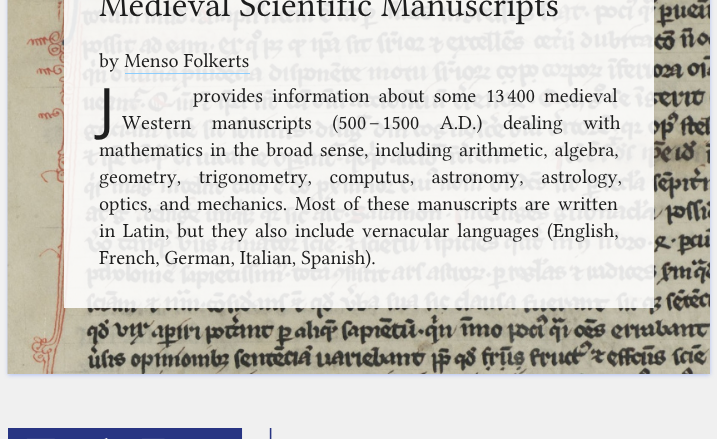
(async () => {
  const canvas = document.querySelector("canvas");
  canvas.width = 717;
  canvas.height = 439;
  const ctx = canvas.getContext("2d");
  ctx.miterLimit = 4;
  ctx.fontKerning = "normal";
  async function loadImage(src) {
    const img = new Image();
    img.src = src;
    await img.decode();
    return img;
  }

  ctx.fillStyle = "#f0f0f0";
  ctx.fillRect(0, 0, 717, 439);
  ctx.fillStyle = "#b0c0f4";
  ctx.filter = "blur(2px)";
  ctx.beginPath();
  ctx.rect(8, -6, 702, 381);
  ctx.fill();
  ctx.filter = "none";
  ctx.drawImage(await loadImage("img/1.png"), 7, 0, 703, 374);
  ctx.fillStyle = "rgba(255, 255, 255, 0.88)";
  ctx.fillRect(64, 0, 590, 308);
  ctx.fillStyle = "rgba(128, 200, 255, 0.88)";
  ctx.fillRect(125, 73, 125, 1);
  ctx.drawImage(await loadImage("img/2.png"), 8, 428, 264, 11);
  ctx.font = "35.25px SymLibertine";
  ctx.fillStyle = "#1d1d1d";
  ctx.fillText("Medieval Scientific Manuscripts", 99, 16);
  ctx.font = "20px SymLibertine";
  ctx.fillText("by Menso Folkerts", 99, 67);
  ctx.font = "57px Noto Sans";
  ctx.fillText("J", 99, 129);
  ctx.wordSpacing = "4px";
  ctx.font = "20px SymLibertine";
  ctx.fillText("provides information about some", 193, 102);
  ctx.fillText("13 400 medieval", 486, 102);
  ctx.wordSpacing = "15.5px";
  ctx.fillText("Western manuscripts (500 – 1500 A.D.) dealing with", 122, 129);
  ctx.wordSpacing = "2px";
  ctx.fillText("mathematics in the broad sense,", 99, 156);
  ctx.fillText("including arithmetic, algebra,", 375, 156);
  ctx.wordSpacing = "12.5px";
  ctx.fillText("geometry, trigonometry, computus, astronomy, astrology,", 99, 183);
  ctx.wordSpacing = "2.5px";
  ctx.fillText("optics, and mechanics. Most of these manuscripts are written", 99, 210);
  ctx.fillText("in Latin, but they also include", 99, 237);
  ctx.wordSpacing = "3px";
  ctx.fillText("vernacular languages (English,", 362, 237);
  ctx.wordSpacing = "0px";
  ctx.fillText("French, German, Italian, Spanish).", 99, 264);
})();
